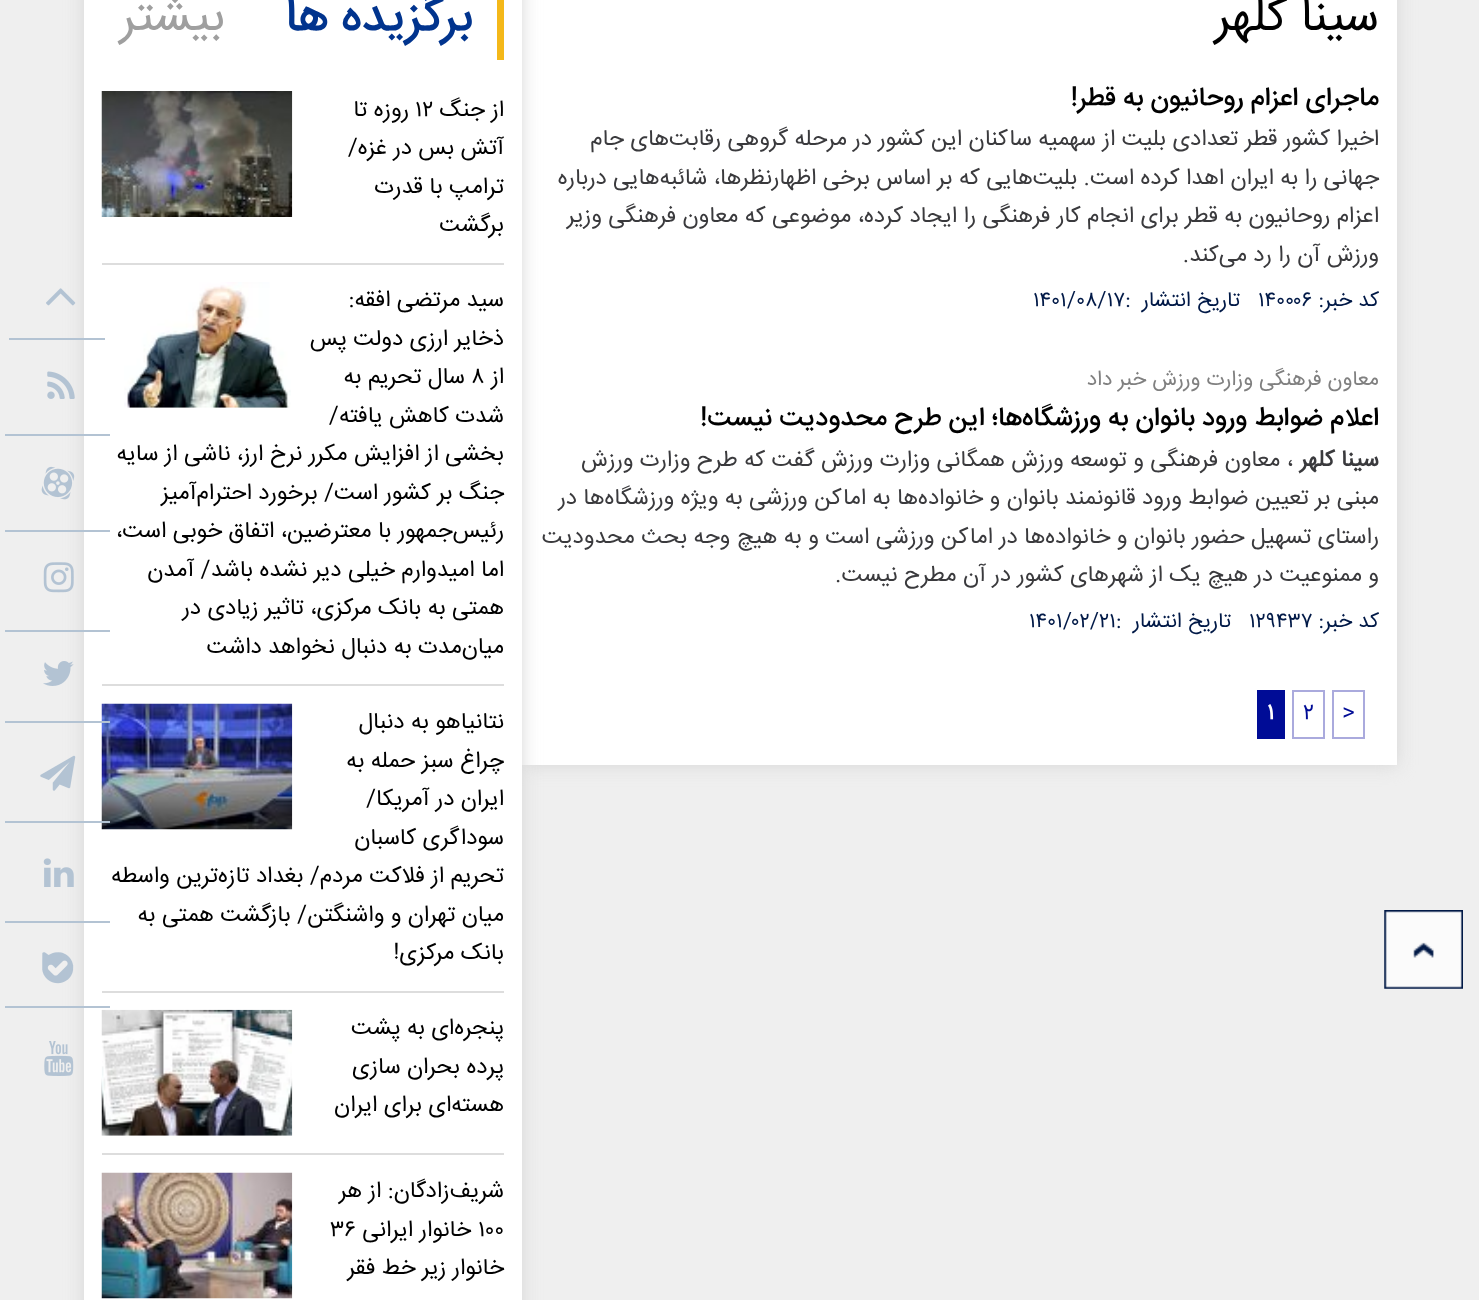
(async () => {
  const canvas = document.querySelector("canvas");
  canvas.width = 1479;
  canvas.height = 1300;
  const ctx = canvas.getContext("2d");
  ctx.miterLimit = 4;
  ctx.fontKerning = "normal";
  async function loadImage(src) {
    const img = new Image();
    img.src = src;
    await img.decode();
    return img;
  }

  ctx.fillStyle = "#efefef";
  ctx.fillRect(0, 0, 1479, 1300);
  ctx.drawImage(await loadImage("img/1.png"), 1384, 910, 79, 79);
  ctx.fillStyle = "#d6d6d6";
  ctx.filter = "blur(9px)";
  ctx.beginPath();
  ctx.rect(522, -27, 875, 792);
  ctx.fill();
  ctx.filter = "none";
  ctx.fillStyle = "#ffffff";
  ctx.fillRect(522, 0, 875, 765);
  ctx.strokeStyle = "#aaaadd";
  ctx.lineWidth = 2;
  ctx.strokeRect(1333, 691, 31, 47);
  ctx.strokeRect(1293, 691, 31, 47);
  ctx.fillStyle = "#000c96";
  ctx.fillRect(1257, 690, 28, 49);
  ctx.fillStyle = "#d6d6d6";
  ctx.filter = "blur(9px)";
  ctx.beginPath();
  ctx.rect(84, -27, 438, 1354);
  ctx.fill();
  ctx.filter = "none";
  for (const [x, y, w, h, color] of [
    [84, 0, 438, 1300, "#ffffff"],
    [497, 0, 7, 60, "#f4b819"],
    [102, 263, 402, 2, "#dddddd"],
  ]) {
    ctx.fillStyle = color;
    ctx.fillRect(x, y, w, h);
  }
  ctx.drawImage(await loadImage("img/2.png"), 101, 91, 192, 126);
  ctx.fillRect(102, 684, 402, 2);
  ctx.drawImage(await loadImage("img/3.png"), 124, 282, 167, 126);
  ctx.fillRect(102, 991, 402, 2);
  ctx.drawImage(await loadImage("img/4.png"), 101, 703, 192, 127);
  ctx.fillRect(102, 1153, 402, 2);
  ctx.drawImage(await loadImage("img/5.png"), 101, 1009, 192, 127);
  ctx.drawImage(await loadImage("img/6.png"), 101, 1172, 192, 127);
  ctx.fillStyle = "#b3c3d3";
  ctx.fillRect(9, 338, 96, 2);
  ctx.drawImage(await loadImage("img/7.png"), 46, 288, 30, 18);
  ctx.fillRect(5, 434, 105, 2);
  ctx.drawImage(await loadImage("img/8.png"), 47, 371, 28, 28);
  ctx.fillRect(5, 530, 105, 2);
  ctx.drawImage(await loadImage("img/9.png"), 41, 466, 34, 34);
  ctx.fillRect(5, 630, 105, 2);
  ctx.drawImage(await loadImage("img/10.png"), 43, 562, 31, 31);
  ctx.fillRect(5, 721, 105, 2);
  ctx.drawImage(await loadImage("img/11.png"), 43, 661, 31, 25);
  ctx.fillRect(5, 821, 105, 2);
  ctx.drawImage(await loadImage("img/12.png"), 40, 755, 36, 36);
  ctx.fillRect(5, 921, 105, 2);
  ctx.drawImage(await loadImage("img/13.png"), 43, 858, 31, 29);
  ctx.fillRect(5, 1006, 105, 2);
  ctx.drawImage(await loadImage("img/14.png"), 42, 952, 32, 32);
  ctx.drawImage(await loadImage("img/15.png"), 44, 1041, 30, 35);
  ctx.direction = "rtl";
  ctx.font = "47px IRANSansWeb";
  ctx.fillStyle = "#000000";
  ctx.fillText("سینا کلهر", 1379, 30);
  ctx.font = "500 26.25px IRANSansWeb";
  ctx.fillText("ماجرای اعزام روحانیون به قطر!", 1379, 105);
  ctx.font = "22.75px IRANSansWeb";
  ctx.fillStyle = "#3a3a3d";
  for (const [text, x, y] of [
    ["اخیرا کشور قطر تعدادی بلیت از سهمیه ساکنان این کشور در مرحله گروهی رقابت‌های جام", 1379, 145],
    ["جهانی را به ایران اهدا کرده است. بلیت‌هایی که بر اساس برخی اظهارنظرها، شائبه‌هایی درباره", 1379, 184],
    ["اعزام روحانیون به قطر برای انجام کار فرهنگی را ایجاد کرده، موضوعی که معاون فرهنگی وزیر", 1379, 222],
    ["ورزش آن را رد می‌کند.", 1379, 261],
  ]) {
    ctx.fillText(text, x, y);
  }
  ctx.font = "21px IRANSansWeb";
  ctx.fillStyle = "#011947";
  ctx.fillText("کد خبر:", 1379, 306);
  ctx.direction = "ltr";
  ctx.fillText("۱۴۰۰۰۶", 1258, 306);
  ctx.direction = "rtl";
  ctx.fillText("تاریخ انتشار", 1240, 306);
  ctx.direction = "ltr";
  ctx.fillText("۱۴۰۱/۰۸/۱۷:", 1033, 306);
  ctx.direction = "rtl";
  ctx.fillStyle = "#808080";
  ctx.fillText("معاون فرهنگی وزارت ورزش خبر داد", 1379, 385);
  ctx.font = "500 26.25px IRANSansWeb";
  ctx.fillStyle = "#000000";
  ctx.fillText("اعلام ضوابط ورود بانوان به ورزشگاه‌ها؛ این طرح محدودیت نیست!", 1379, 425);
  ctx.font = "bold 22.75px IRANSansWeb";
  ctx.fillStyle = "#3a3a3d";
  ctx.fillText("سینا کلهر", 1379, 466);
  ctx.font = "22.75px IRANSansWeb";
  for (const [text, x, y] of [
    ["، معاون فرهنگی و توسعه ورزش همگانی وزارت ورزش گفت که طرح وزارت ورزش", 1293, 466],
    ["مبنی بر تعیین ضوابط ورود قانونمند بانوان و خانواده‌ها به اماکن ورزشی به ویژه ورزشگاه‌ها در", 1379, 504],
    ["راستای تسهیل حضور بانوان و خانواده‌ها در اماکن ورزشی است و به هیچ وجه بحث محدودیت", 1379, 543],
    ["و ممنوعیت در هیچ یک از شهر‌های کشور در آن مطرح نیست.", 1379, 581],
  ]) {
    ctx.fillText(text, x, y);
  }
  ctx.font = "21px IRANSansWeb";
  ctx.fillStyle = "#011947";
  ctx.fillText("کد خبر:", 1379, 627);
  ctx.direction = "ltr";
  ctx.fillText("۱۲۹۴۳۷", 1249, 627);
  ctx.direction = "rtl";
  ctx.fillText("تاریخ انتشار", 1231, 627);
  ctx.direction = "ltr";
  ctx.fillText("۱۴۰۱/۰۲/۲۱:", 1029, 627);
  ctx.font = "22.75px IRANSansWeb";
  ctx.fillStyle = "#000c96";
  ctx.fillText(">", 1342, 719);
  ctx.fillText("۲", 1303, 719);
  ctx.font = "bold 22.75px IRANSansWeb";
  ctx.fillStyle = "#ffffff";
  ctx.fillText("۱", 1267, 719);
  ctx.direction = "rtl";
  ctx.font = "500 47px IRANSansWeb";
  ctx.fillStyle = "#01348e";
  ctx.fillText("برگزیده ها", 472, 30);
  ctx.font = "47px IRANSansWeb";
  ctx.fillStyle = "#9f9f9f";
  ctx.fillText("بیشتر", 225, 30);
  ctx.font = "22.75px IRANSansWeb";
  ctx.fillStyle = "#000000";
  ctx.fillText("از جنگ", 504, 116);
  ctx.direction = "ltr";
  ctx.fillText("۱۲", 415, 116);
  ctx.direction = "rtl";
  for (const [text, x, y] of [
    ["روزه تا", 409, 116],
    ["آتش بس در غزه/", 504, 154],
    ["ترامپ با قدرت", 504, 193],
    ["برگشت", 504, 231],
    ["سید مرتضی افقه:", 504, 306],
    ["ذخایر ارزی دولت پس", 504, 345],
    ["از", 504, 383],
  ]) {
    ctx.fillText(text, x, y);
  }
  ctx.direction = "ltr";
  ctx.fillText("۸", 471, 383);
  ctx.direction = "rtl";
  for (const [text, x, y] of [
    ["سال تحریم به", 465, 383],
    ["شدت کاهش یافته/", 504, 422],
    ["بخشی از افزایش مکرر نرخ ارز، ناشی از سایه", 504, 460],
    ["جنگ بر کشور است/ برخورد احترام‌آمیز", 504, 499],
    ["رئیس‌جمهور با معترضین، اتفاق خوبی است،", 504, 537],
    ["اما امیدوارم خیلی دیر نشده باشد/ آمدن", 504, 576],
    ["همتی به بانک مرکزی، تاثیر زیادی در", 504, 614],
    ["میان‌مدت به دنبال نخواهد داشت", 504, 653],
    ["نتانياهو به دنبال", 504, 728],
    ["چراغ سبز حمله به", 504, 767],
    ["ایران در آمریکا/", 504, 805],
    ["سوداگری کاسبان", 504, 844],
    ["تحریم از فلاکت مردم/ بغداد تازه‌ترین واسطه", 504, 882],
    ["ميان تهران و واشنگتن/ بازگشت همتی به", 504, 921],
    ["بانک مرکزی!", 504, 959],
    ["پنجره‌ای به پشت", 504, 1034],
    ["پرده بحران سازی", 504, 1073],
    ["هسته‌ای برای ایران", 504, 1111],
    ["شریف‌زادگان: از هر", 504, 1197],
  ]) {
    ctx.fillText(text, x, y);
  }
  ctx.direction = "ltr";
  ctx.fillText("١٠٠", 478, 1236);
  ctx.direction = "rtl";
  ctx.fillText("خانوار ایرانی", 471, 1236);
  ctx.direction = "ltr";
  ctx.fillText("۳۶", 330, 1236);
  ctx.direction = "rtl";
  ctx.fillText("خانوار زیر خط فقر", 504, 1274);
})();
